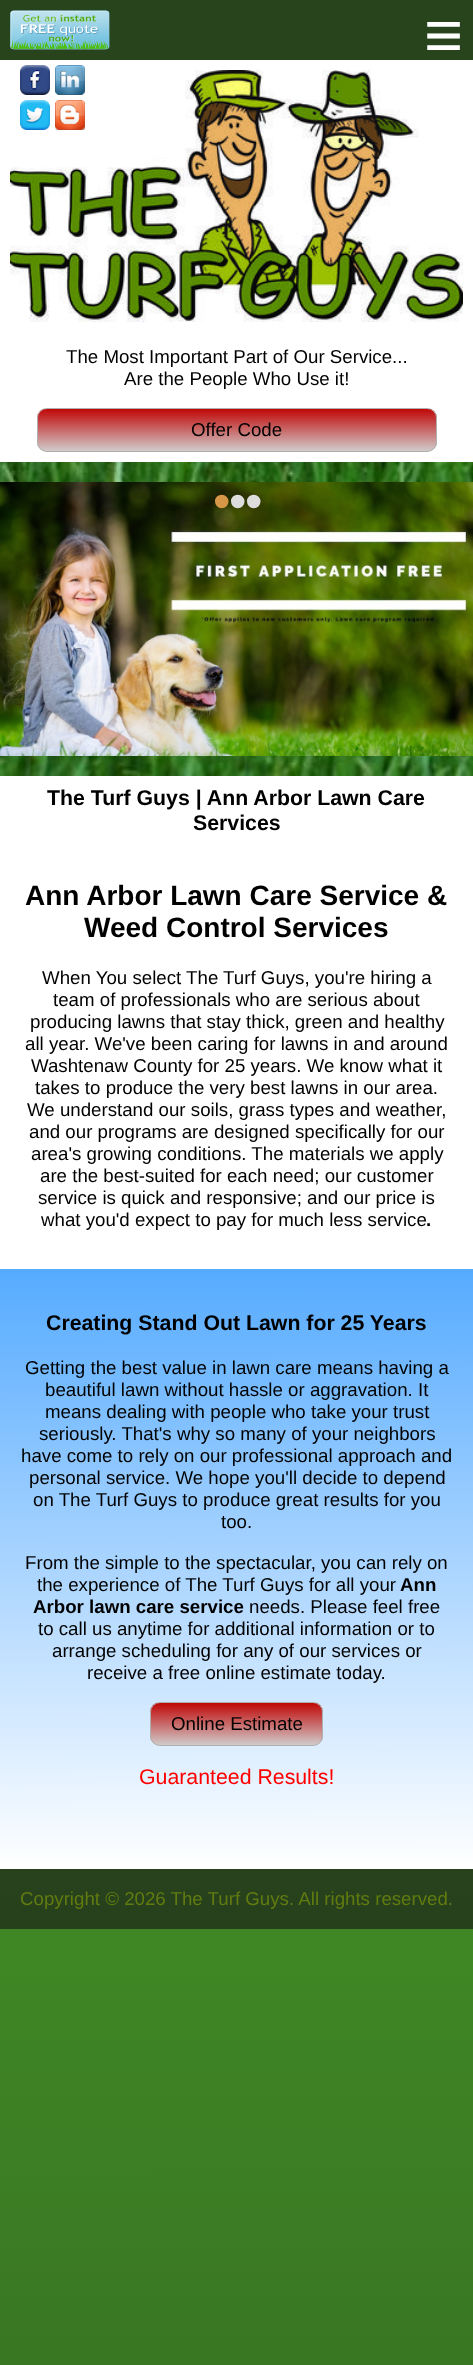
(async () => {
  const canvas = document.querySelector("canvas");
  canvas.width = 473;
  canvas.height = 2365;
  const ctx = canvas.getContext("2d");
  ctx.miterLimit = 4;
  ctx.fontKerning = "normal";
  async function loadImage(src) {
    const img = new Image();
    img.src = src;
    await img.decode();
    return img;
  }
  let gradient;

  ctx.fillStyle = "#ffffff";
  ctx.fillRect(0, 0, 473, 2365);
  gradient = ctx.createLinearGradient(236, 0, 237, 1929);
  gradient.addColorStop(0, "#3f8725");
  gradient.addColorStop(1, "#26401c");
  ctx.fillStyle = gradient;
  ctx.fillRect(0, 1869, 473, 60);
  gradient = ctx.createLinearGradient(236, 1929, 237, 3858);
  gradient.addColorStop(0, "#3f8725");
  gradient.addColorStop(1, "#26401c");
  ctx.fillStyle = gradient;
  ctx.fillRect(0, 1929, 473, 436);
  ctx.fillStyle = "#28441d";
  ctx.fillRect(0, 0, 473, 60);
  ctx.drawImage(await loadImage("img/1.png"), 10, 10, 100, 40);
  ctx.drawImage(await loadImage("img/7.png"), 10, 70, 453, 252);
  ctx.drawImage(await loadImage("img/2.png"), 20, 65, 30, 30);
  ctx.drawImage(await loadImage("img/3.png"), 55, 65, 30, 30);
  ctx.drawImage(await loadImage("img/4.png"), 20, 100, 30, 30);
  ctx.drawImage(await loadImage("img/5.png"), 55, 100, 30, 30);
  ctx.drawImage(await loadImage("img/6.png"), 0, 462, 473, 314);
  ctx.save();
  ctx.beginPath();
  ctx.roundRect(37, 408, 400, 44, 10);
  ctx.clip();
  gradient = ctx.createLinearGradient(237, 409, 237, 451);
  gradient.addColorStop(0, "#c00707");
  gradient.addColorStop(1, "#d1cbcb");
  ctx.fillStyle = gradient;
  ctx.fillRect(37, 409, 400, 42);
  ctx.restore();
  ctx.beginPath();
  ctx.roundRect(37.5, 408.5, 399, 43, 9.5);
  ctx.strokeStyle = "#afafaf";
  ctx.stroke();
  ctx.drawImage(await loadImage("img/8.png"), 0, 482, 473, 274);
  gradient = ctx.createLinearGradient(236, 1269, 237, 1869);
  gradient.addColorStop(0, "#56abff");
  gradient.addColorStop(1, "#ffffff");
  ctx.fillStyle = gradient;
  ctx.fillRect(0, 1269, 473, 592);
  ctx.save();
  ctx.beginPath();
  ctx.roundRect(150, 1702, 173, 44, 10);
  ctx.clip();
  gradient = ctx.createLinearGradient(237, 1703, 237, 1745);
  gradient.addColorStop(0, "#c00707");
  gradient.addColorStop(1, "#d1cbcb");
  ctx.fillStyle = gradient;
  ctx.fillRect(150, 1703, 173, 42);
  ctx.restore();
  ctx.beginPath();
  ctx.roundRect(150.5, 1702.5, 172, 43, 9.5);
  ctx.stroke();
  ctx.font = "bold 67px Liberation Sans";
  ctx.fillStyle = "#ffffff";
  ctx.fillText("≡", 424, 58);
  ctx.font = "18.7px Liberation Sans";
  ctx.fillStyle = "#000000";
  for (const [text, x, y] of [
    ["The Most Important Part of Our Service...", 66, 363],
    ["Are the People Who Use it!", 124, 385],
    ["Offer Code", 191, 436],
  ]) {
    ctx.fillText(text, x, y);
  }
  ctx.font = "50px Liberation Sans";
  ctx.fillStyle = "#d69746";
  ctx.fillText("•", 213, 518);
  ctx.fillStyle = "#dddddd";
  ctx.fillText("•", 229, 518);
  ctx.fillText("•", 245, 518);
  ctx.font = "bold 21.3px Liberation Sans";
  ctx.fillStyle = "#000000";
  ctx.fillText("The Turf Guys | Ann Arbor Lawn Care", 47, 805);
  ctx.fillText("Services", 193, 830);
  ctx.font = "bold 28px Liberation Sans";
  ctx.fillText("Ann Arbor Lawn Care Service &", 25, 905);
  ctx.fillText("Weed Control Services", 84, 937);
  ctx.font = "18.7px Liberation Sans";
  for (const [text, x, y] of [
    ["When You select The Turf Guys, you're hiring a", 42, 984],
    ["team of professionals who are serious about", 53, 1006],
    ["producing lawns that stay thick, green and healthy", 30, 1028],
    ["all year. We've been caring for lawns in and around", 25, 1050],
    ["Washtenaw County for 25 years. We know what it", 31, 1072],
    ["takes to produce the very best lawns in our area.", 35, 1094],
    ["We understand our soils, grass types and weather,", 27, 1116],
    ["and our programs are designed specifically for our", 29, 1138],
    ["area's growing conditions. The materials we apply", 31, 1160],
    ["are the best-suited for each need; our customer", 40, 1182],
    ["service is quick and responsive; and our price is", 38, 1204],
    ["what you'd expect to pay for much less service", 41, 1226],
  ]) {
    ctx.fillText(text, x, y);
  }
  ctx.font = "bold 18.7px Liberation Sans";
  ctx.fillText(".", 426, 1226);
  ctx.font = "bold 21.3px Liberation Sans";
  ctx.fillText("Creating Stand Out Lawn for 25 Years", 46, 1330);
  ctx.font = "18.7px Liberation Sans";
  for (const [text, x, y] of [
    ["Getting the best value in lawn care means having a", 25, 1374],
    ["beautiful lawn without hassle or aggravation. It", 45, 1396],
    ["means dealing with people who take your trust", 45, 1418],
    ["seriously. That's why so many of your neighbors", 39, 1440],
    ["have come to rely on our professional approach and", 21, 1462],
    ["personal service. We hope you'll decide to depend", 29, 1484],
    ["on The Turf Guys to produce great results for you", 33, 1506],
    ["too.", 221, 1528],
    ["From the simple to the spectacular, you can rely on", 25, 1569],
    ["the experience of The Turf Guys for all your", 37, 1591],
  ]) {
    ctx.fillText(text, x, y);
  }
  ctx.font = "bold 18.7px Liberation Sans";
  ctx.fillText("Ann", 400, 1591);
  ctx.fillText("Arbor lawn care service", 33, 1613);
  ctx.font = "18.7px Liberation Sans";
  for (const [text, x, y] of [
    ["needs. Please feel free", 249, 1613],
    ["to call us anytime for additional information or to", 38, 1635],
    ["arrange scheduling for any of our services or", 52, 1657],
    ["receive a free online estimate today.", 87, 1679],
    ["Online Estimate", 171, 1730],
  ]) {
    ctx.fillText(text, x, y);
  }
  ctx.font = "21.3px Liberation Sans";
  ctx.fillStyle = "#ff0000";
  ctx.fillText("Guaranteed Results!", 139, 1784);
  ctx.font = "18.7px Liberation Sans";
  ctx.fillStyle = "#627b10";
  ctx.fillText("Copyright © 2026 The Turf Guys. All rights reserved.", 20, 1905);
})();
